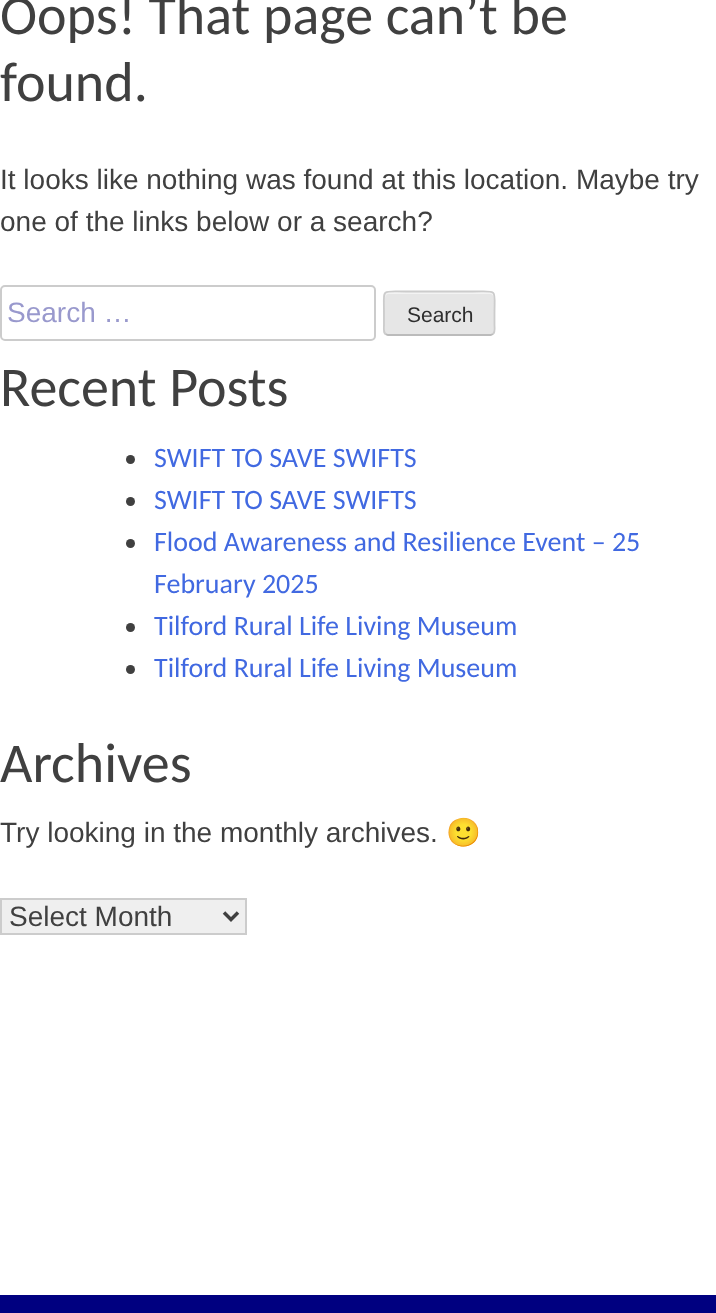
(async () => {
  const canvas = document.querySelector("canvas");
  canvas.width = 716;
  canvas.height = 1313;
  const ctx = canvas.getContext("2d");
  ctx.miterLimit = 4;
  ctx.fontKerning = "normal";
  let path;

  ctx.fillStyle = "#ffffff";
  ctx.fillRect(0, 0, 716, 1313);
  ctx.beginPath();
  ctx.roundRect(1, 286, 374, 54, 4);
  ctx.strokeStyle = "#cccccc";
  ctx.lineWidth = 2;
  ctx.stroke();
  ctx.fillStyle = "#e6e6e6";
  ctx.beginPath();
  ctx.roundRect(383, 291, 112, 45, 5);
  ctx.fill();
  ctx.fillStyle = "#f3f3f3";
  path = new Path2D("M388 294H490C492 294 494 296 494 298V296C494 294 492 292 490 292H389C387 292 385 294 385 296V298C385 296 387 294 388 294Z");
  ctx.fill(path);
  path = new Path2D("M493 334L490.5 335H388L385.5 334");
  ctx.strokeStyle = "#bbbbbb";
  ctx.lineWidth = 1.8;
  ctx.stroke(path);
  path = new Path2D("M385.5 334C383 331.5 384 327.5 384 325V313C384 288 380 291.5 405.5 291.5H473C498.5 291.5 494.5 288 494.5 313V325C494.5 327.5 495.5 331.5 493 334");
  ctx.strokeStyle = "#cccccc";
  ctx.stroke(path);
  ctx.fillStyle = "#404040";
  ctx.beginPath();
  ctx.arc(130.5, 459.5, 4.5, 0, Math.PI * 2);
  ctx.fill();
  ctx.beginPath();
  ctx.arc(130.5, 501.5, 4.5, 0, Math.PI * 2);
  ctx.fill();
  ctx.beginPath();
  ctx.arc(130.5, 543.5, 4.5, 0, Math.PI * 2);
  ctx.fill();
  ctx.beginPath();
  ctx.arc(130.5, 627.5, 4.5, 0, Math.PI * 2);
  ctx.fill();
  ctx.beginPath();
  ctx.arc(130.5, 669.5, 4.5, 0, Math.PI * 2);
  ctx.fill();
  ctx.fillStyle = "#efefef";
  ctx.beginPath();
  ctx.rect(1, 899, 245, 35);
  ctx.fill();
  ctx.lineWidth = 2;
  ctx.stroke();
  path = new Path2D("M224 912.5L231 919.5L238 912.5");
  ctx.strokeStyle = "#404040";
  ctx.lineWidth = 3.5;
  ctx.stroke(path);
  ctx.fillStyle = "#000080";
  ctx.fillRect(0, 1295, 716, 18);
  ctx.font = "56px Carlito";
  ctx.fillStyle = "#404040";
  ctx.fillText("Oops! That page can’t be", 0, 34);
  ctx.fillText("found.", 0, 101);
  ctx.font = "28px Liberation Sans";
  ctx.fillText("It looks like nothing was found at this location. Maybe try", 0, 189);
  ctx.fillText("one of the links below or a search?", 0, 231);
  ctx.fillStyle = "#9999cd";
  ctx.fillText("Search …", 7, 322);
  ctx.font = "21px Liberation Sans";
  ctx.fillStyle = "#2e2e2e";
  ctx.fillText("Search", 407, 322);
  ctx.font = "56px Carlito";
  ctx.fillStyle = "#404040";
  ctx.fillText("Recent Posts", 0, 406);
  ctx.font = "28px Carlito";
  ctx.fillStyle = "#4169e1";
  for (const [text, x, y] of [
    ["SWIFT TO SAVE SWIFTS", 154, 467],
    ["SWIFT TO SAVE SWIFTS", 154, 509],
    ["Flood Awareness and Resilience Event – 25", 154, 551],
    ["February 2025", 154, 593],
    ["Tilford Rural Life Living Museum", 154, 635],
    ["Tilford Rural Life Living Museum", 154, 677],
  ]) {
    ctx.fillText(text, x, y);
  }
  ctx.font = "56px Carlito";
  ctx.fillStyle = "#404040";
  ctx.fillText("Archives", 0, 782);
  ctx.font = "28px Liberation Sans";
  ctx.fillText("Try looking in the monthly archives.", 0, 842);
  ctx.font = "28px Noto Color Emoji";
  ctx.fillText("🙂", 446, 842);
  ctx.font = "28px Liberation Sans";
  ctx.fillText("Select Month", 9, 926);
})();
